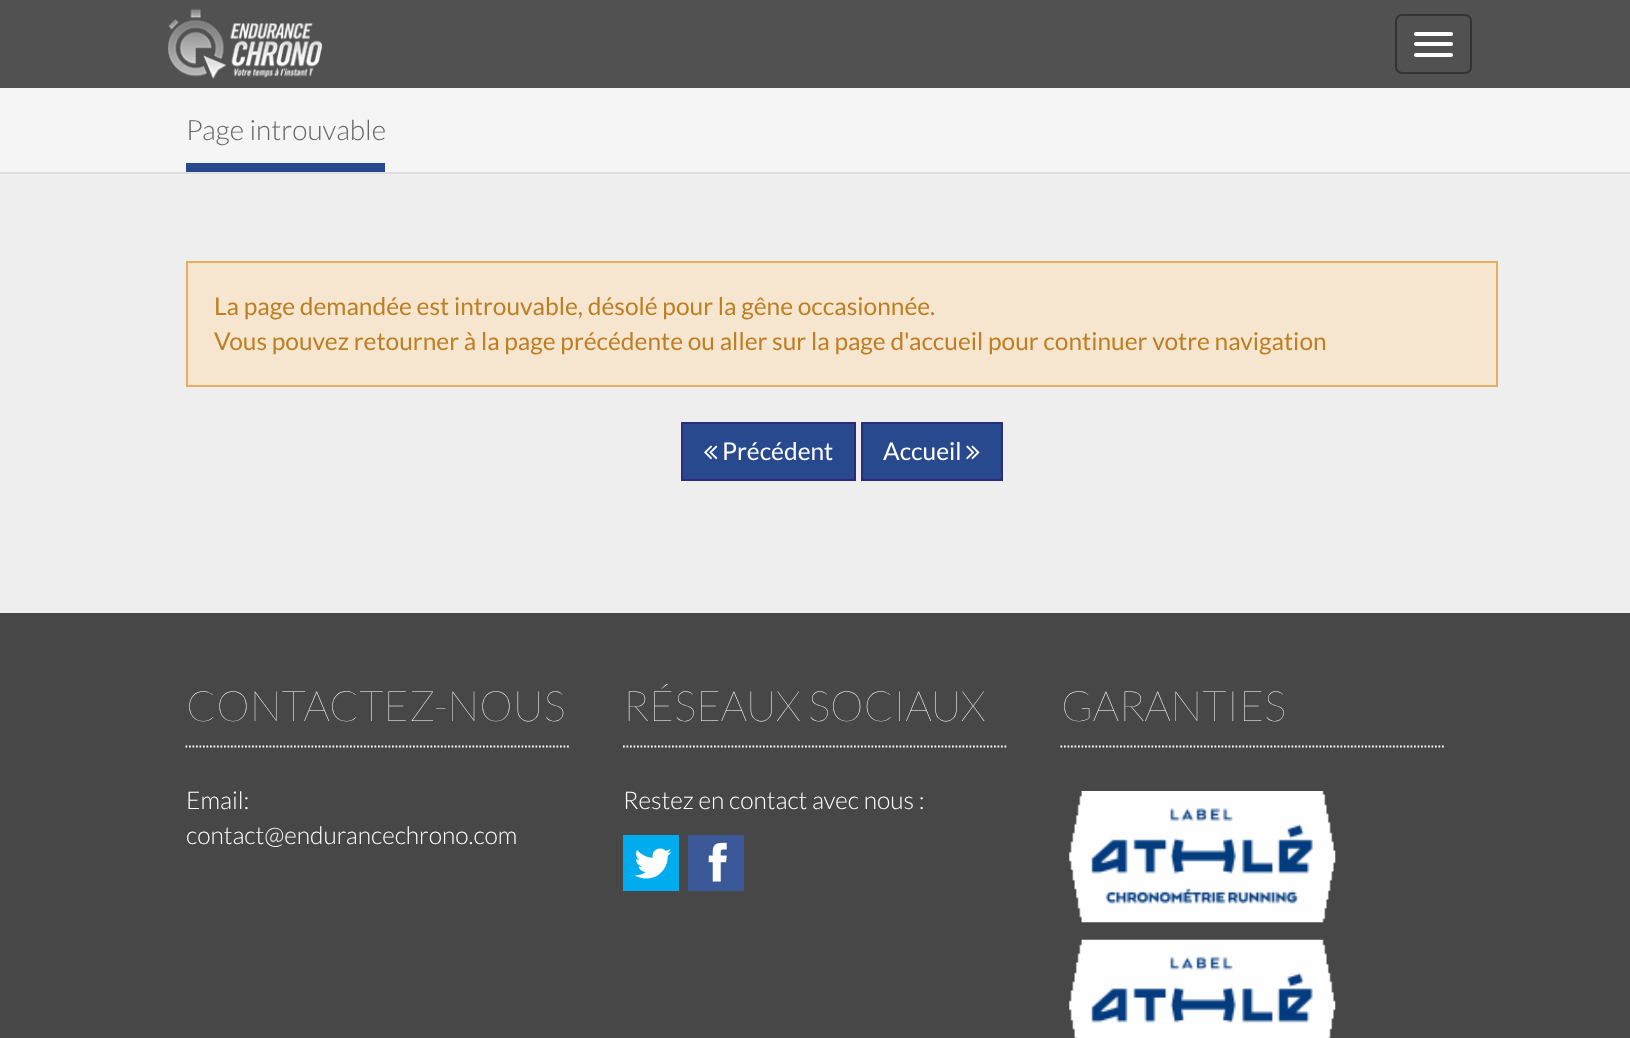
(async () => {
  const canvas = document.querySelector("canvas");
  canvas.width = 1630;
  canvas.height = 1038;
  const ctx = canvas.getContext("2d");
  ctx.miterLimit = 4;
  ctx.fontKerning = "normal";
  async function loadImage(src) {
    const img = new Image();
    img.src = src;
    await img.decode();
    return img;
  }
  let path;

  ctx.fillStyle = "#eeeeee";
  ctx.fillRect(0, 0, 1630, 1038);
  ctx.fillStyle = "#515151";
  ctx.fillRect(0, 0, 1630, 88);
  ctx.drawImage(await loadImage("img/1.png"), 168, 8, 155, 71);
  ctx.beginPath();
  ctx.roundRect(1396, 15, 75, 58, 6);
  ctx.strokeStyle = "#333333";
  ctx.lineWidth = 2;
  ctx.stroke();
  ctx.fillStyle = "#ffffff";
  ctx.beginPath();
  ctx.roundRect(1414, 32, 39, 4, 2);
  ctx.fill();
  ctx.beginPath();
  ctx.roundRect(1414, 42, 39, 4, 2);
  ctx.fill();
  ctx.beginPath();
  ctx.roundRect(1414, 53, 39, 4, 2);
  ctx.fill();
  for (const [x, y, w, h, color] of [
    [0, 88, 1630, 84, "#f5f5f5"],
    [0, 172, 1630, 2, "#dedede"],
    [186, 163, 199, 9, "#29498f"],
  ]) {
    ctx.fillStyle = color;
    ctx.fillRect(x, y, w, h);
  }
  ctx.fillStyle = "#f6e6cf";
  ctx.beginPath();
  ctx.rect(187, 262, 1310, 124);
  ctx.fill();
  ctx.strokeStyle = "#e3af63";
  ctx.stroke();
  ctx.fillStyle = "#29498f";
  ctx.beginPath();
  ctx.rect(682, 423, 173, 57);
  ctx.fill();
  ctx.strokeStyle = "#2c2d7a";
  ctx.stroke();
  ctx.drawImage(await loadImage("img/2.png"), 704, 445, 14, 15);
  ctx.beginPath();
  ctx.rect(862, 423, 140, 57);
  ctx.fill();
  ctx.stroke();
  ctx.drawImage(await loadImage("img/3.png"), 966, 445, 14, 15);
  ctx.fillStyle = "#474747";
  ctx.fillRect(0, 613, 1630, 425);
  path = new Path2D("M185.5 746.5H570.5");
  ctx.strokeStyle = "#ffffff";
  ctx.lineWidth = 1.8;
  ctx.setLineDash([1.75, 1.75]);
  ctx.stroke(path);
  path = new Path2D("M623 746.5H1008");
  ctx.stroke(path);
  ctx.fillStyle = "#00acee";
  ctx.fillRect(623, 835, 56, 56);
  ctx.drawImage(await loadImage("img/4.png"), 634, 848, 38, 31);
  ctx.fillStyle = "#3b5998";
  ctx.fillRect(688, 835, 56, 56);
  ctx.drawImage(await loadImage("img/5.png"), 708, 842, 19, 40);
  path = new Path2D("M1060.5 746.5H1445.5");
  ctx.stroke(path);
  ctx.drawImage(await loadImage("img/6.png"), 1069, 791, 267, 132);
  ctx.drawImage(await loadImage("img/7.png"), 1069, 939, 267, 99);
  ctx.font = "300 28px Lato";
  ctx.fillStyle = "#666666";
  ctx.fillText("Page introuvable", 186, 140);
  ctx.font = "24.5px Lato";
  ctx.fillStyle = "#be7e22";
  ctx.fillText("La page demandée est introuvable, désolé pour la gêne occasionnée.", 214, 315);
  ctx.fillText("Vous pouvez retourner à la page précédente ou aller sur la page d'accueil pour continuer votre navigation", 214, 350);
  ctx.fillStyle = "#ffffff";
  ctx.fillText("Précédent", 722, 460);
  ctx.fillText("Accueil", 883, 460);
  ctx.font = "100 42px Lato";
  ctx.fillText("CONTACTEZ-NOUS", 186, 721);
  ctx.font = "300 24.5px Lato";
  ctx.fillText("Email:", 186, 809);
  ctx.fillText("contact@endurancechrono.com", 186, 844);
  ctx.font = "100 42px Lato";
  ctx.fillText("RÉSEAUX SOCIAUX", 623, 721);
  ctx.font = "300 24.5px Lato";
  ctx.fillText("Restez en contact avec nous :", 623, 809);
  ctx.font = "100 42px Lato";
  ctx.fillText("GARANTIES", 1061, 721);
})();
